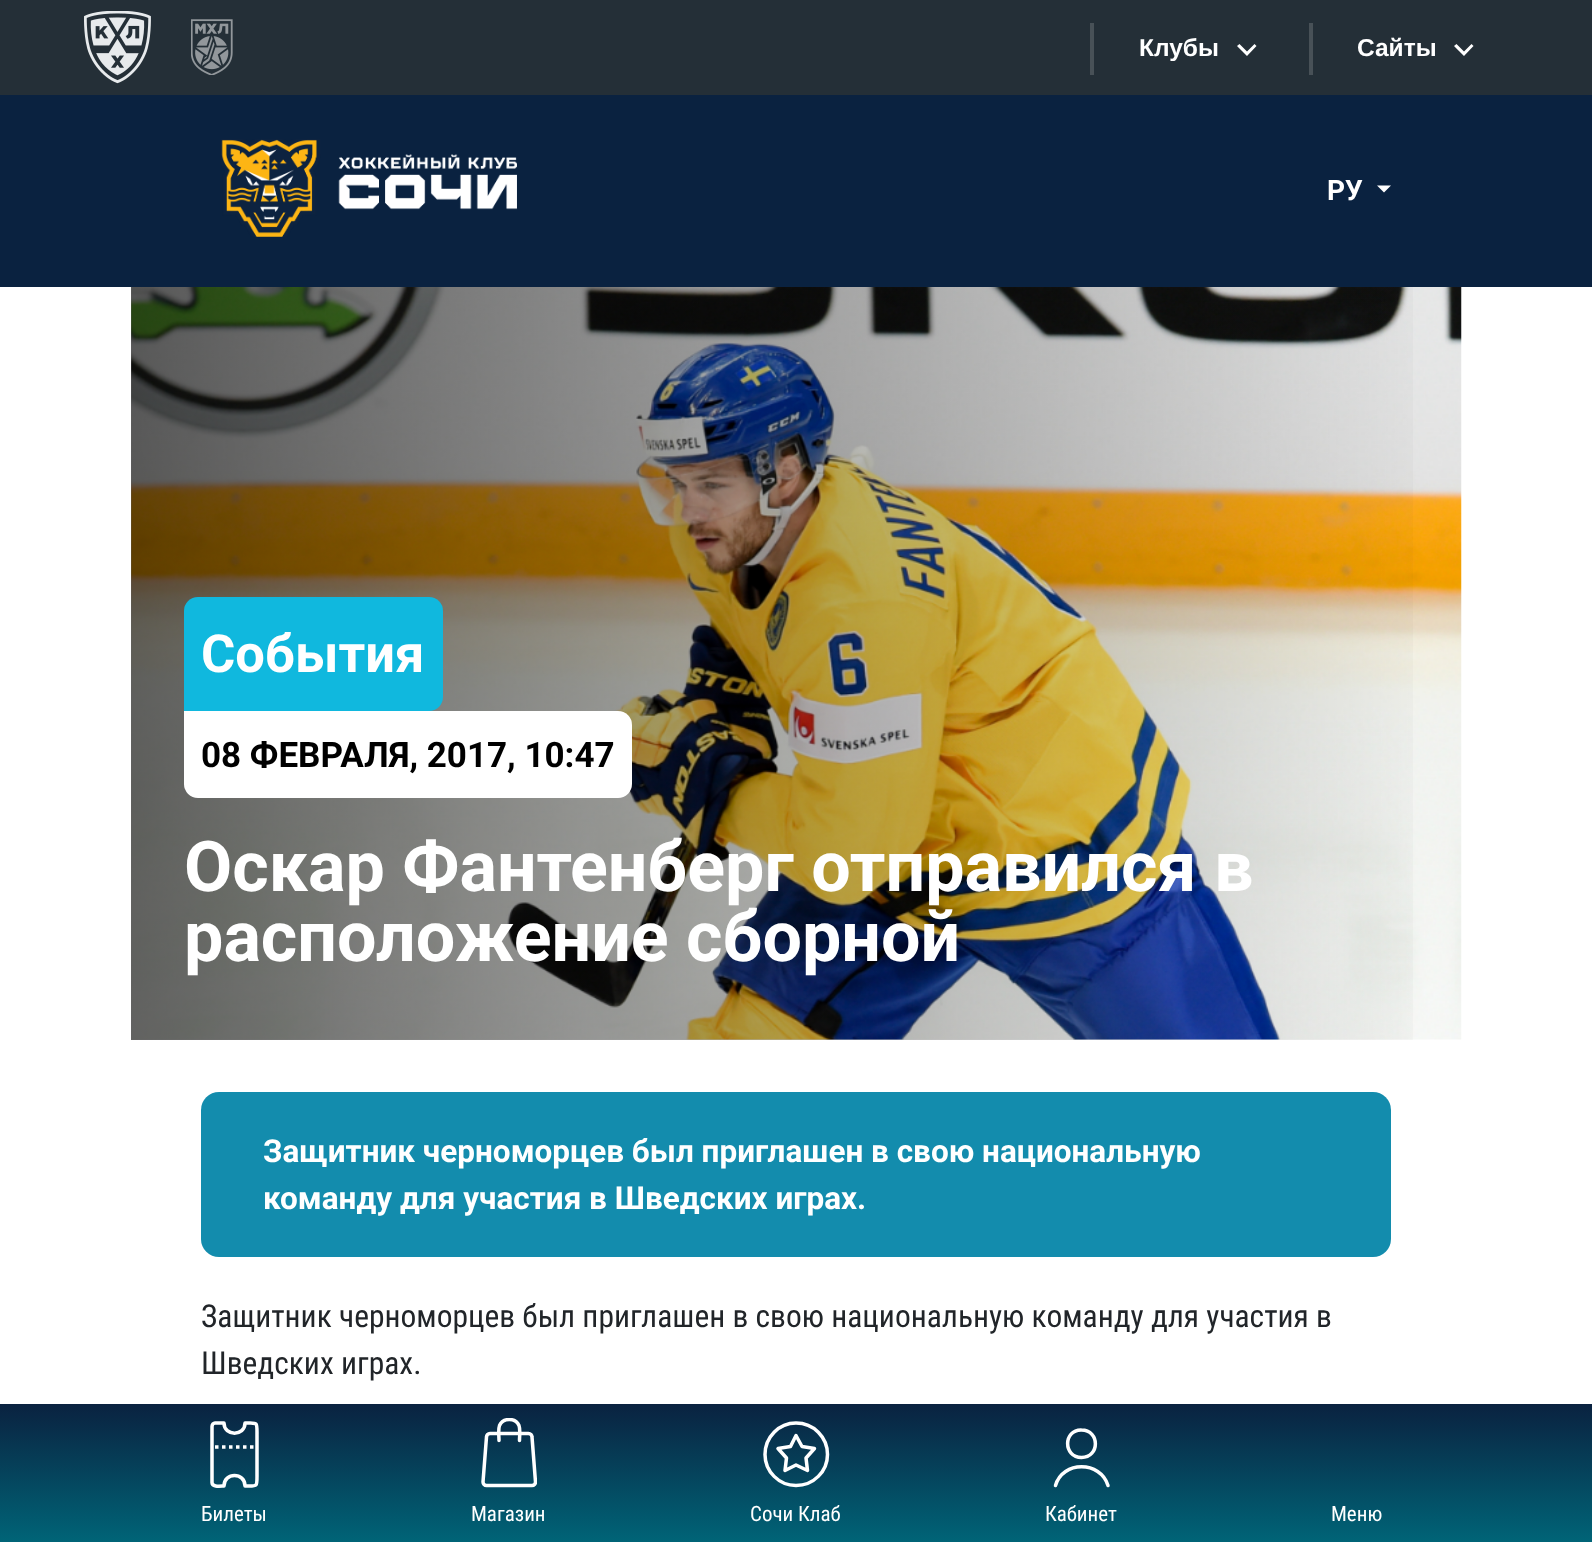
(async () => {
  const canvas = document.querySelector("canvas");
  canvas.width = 1592;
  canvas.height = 1542;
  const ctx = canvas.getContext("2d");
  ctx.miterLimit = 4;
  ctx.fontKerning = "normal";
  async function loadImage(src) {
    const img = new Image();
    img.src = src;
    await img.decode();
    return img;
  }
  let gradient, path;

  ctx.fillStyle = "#ffffff";
  ctx.fillRect(0, 0, 1592, 1542);
  ctx.fillStyle = "#242f37";
  ctx.fillRect(0, 0, 1592, 95);
  ctx.drawImage(await loadImage("img/1.png"), 84, 11, 67, 73);
  ctx.drawImage(await loadImage("img/2.png"), 191, 19, 42, 56);
  ctx.fillStyle = "#485157";
  ctx.fillRect(1090, 23, 4, 52);
  ctx.fillStyle = "#ffffff";
  path = new Path2D("M1254.5 44L1247 51.5L1239.5 44L1237 46L1247 56L1256.5 46Z");
  ctx.fill(path);
  ctx.fillStyle = "#485157";
  ctx.fillRect(1309, 23, 4, 52);
  ctx.fillStyle = "#ffffff";
  path = new Path2D("M1471.5 44L1464 51.5L1456.5 44L1454 46L1464 56L1473.5 46Z");
  ctx.fill(path);
  ctx.fillStyle = "#0a2240";
  ctx.fillRect(0, 95, 1592, 192);
  ctx.drawImage(await loadImage("img/3.png"), 221, 139, 296, 98);
  ctx.fillStyle = "#ffffff";
  path = new Path2D("M1377 185.5H1391L1384 192.5Z");
  ctx.fill(path);
  ctx.drawImage(await loadImage("img/4.png"), 131, 287, 1331, 753);
  gradient = ctx.createLinearGradient(131, 663, 1461, 663);
  gradient.addColorStop(0, "rgba(0, 0, 0, 0.6)");
  gradient.addColorStop(1, "rgba(0, 0, 0, 0)");
  ctx.fillStyle = gradient;
  ctx.fillRect(131, 287, 1282, 753);
  ctx.fillStyle = "#10b8de";
  ctx.beginPath();
  ctx.roundRect(184, 597, 259, 114, [14, 14, 14, 0]);
  ctx.fill();
  ctx.fillStyle = "#ffffff";
  ctx.beginPath();
  ctx.roundRect(184, 711, 448, 87, [0, 14, 14, 14]);
  ctx.fill();
  ctx.fillStyle = "#138cad";
  ctx.beginPath();
  ctx.roundRect(201, 1092, 1190, 165, 18);
  ctx.fill();
  gradient = ctx.createLinearGradient(796, 1404, 796, 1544);
  gradient.addColorStop(0, "#0a2240");
  gradient.addColorStop(1, "#006578");
  ctx.fillStyle = gradient;
  ctx.fillRect(0, 1404, 1592, 138);
  path = new Path2D("M212 1482.5V1426.5C212 1424.5 213.5 1423 215 1423H224C224 1436.5 245 1436.5 245 1423C258 1423 257 1421 257 1435.5V1473C257 1487.5 258 1486 245 1486C245 1472 224 1472 224 1486C221 1486 212 1487.5 212 1482.5Z");
  ctx.strokeStyle = "#ffffff";
  ctx.lineWidth = 3.5;
  ctx.lineCap = "round";
  ctx.lineJoin = "round";
  ctx.stroke(path);
  path = new Path2D("M215 1447H254");
  ctx.lineCap = "butt";
  ctx.lineJoin = "miter";
  ctx.setLineDash([3.5, 3.5]);
  ctx.stroke(path);
  ctx.save();
  ctx.beginPath();
  ctx.rect(481, 1418, 56, 70);
  ctx.clip();
  path = new Path2D("M532 1437L535.5 1482C535.5 1484 534 1485.5 532 1485.5H486.5C484.5 1485.5 483 1484 483 1482L486.5 1437C486.5 1435 488 1433.5 490 1433.5H528.5C530.5 1433.5 532 1435 532 1437Z");
  ctx.setLineDash([]);
  ctx.stroke(path);
  path = new Path2D("M519.5 1440.5C519.5 1436 520.5 1429.5 519 1425.5C515.5 1417.5 503 1417.5 499.5 1425.5C498 1429.5 499 1436 499 1440.5");
  ctx.lineCap = "round";
  ctx.lineJoin = "round";
  ctx.stroke(path);
  ctx.restore();
  path = new Path2D("M796 1485.5C813.5 1485.5 827.5 1471.5 827.5 1454.5C827.5 1437 813.5 1423 796 1423C779 1423 765 1437 765 1454.5C765 1471.5 779 1485.5 796 1485.5Z");
  ctx.setLineDash([]);
  ctx.stroke(path);
  path = new Path2D("M796 1435.5L802 1446.5L814.5 1448.5L806 1458L807.5 1470.5L796 1465L785 1470.5L786.5 1458L778 1448.5L790.5 1446.5Z");
  ctx.lineCap = "round";
  ctx.lineJoin = "round";
  ctx.stroke(path);
  path = new Path2D("M1081.5 1457.5C1100 1457.5 1100 1430 1081.5 1430C1063 1429.5 1063 1457.5 1081.5 1457.5ZM1055.5 1485.5C1062.5 1460.5 1100.5 1460.5 1108 1485.5");
  ctx.stroke(path);
  ctx.font = "bold 24.5px Liberation Sans";
  ctx.fillStyle = "#ffffff";
  ctx.fillText("Клубы", 1139, 56);
  ctx.fillText("Сайты", 1357, 56);
  ctx.font = "bold 28px Roboto";
  ctx.fillText("РУ", 1327, 200);
  ctx.font = "bold 52.5px Roboto";
  ctx.fillText("События", 201, 672);
  ctx.font = "bold 35px Roboto";
  ctx.fillStyle = "#000000";
  ctx.fillText("08 ФЕВРАЛЯ, 2017, 10:47", 201, 767);
  ctx.font = "bold 70px Roboto";
  ctx.fillStyle = "#ffffff";
  ctx.fillText("Оскар Фантенберг отправился в", 184, 891);
  ctx.fillText("расположение сборной", 184, 961);
  ctx.font = "bold 31.5px Roboto";
  ctx.fillText("Защитник черноморцев был приглашен в свою национальную", 263, 1162);
  ctx.fillText("команду для участия в Шведских играх.", 263, 1209);
  ctx.font = "31.5px Roboto Condensed";
  ctx.fillStyle = "#212529";
  ctx.fillText("Защитник черноморцев был приглашен в свою национальную команду для участия в", 201, 1327);
  ctx.fillText("Шведских играх.", 201, 1374);
  ctx.font = "21px Roboto Condensed";
  ctx.fillStyle = "#ffffff";
  for (const [text, x, y] of [
    ["Билеты", 201, 1521],
    ["Магазин", 471, 1521],
    ["Сочи Клаб", 750, 1521],
    ["Кабинет", 1045, 1521],
    ["Меню", 1331, 1521],
  ]) {
    ctx.fillText(text, x, y);
  }
})();
